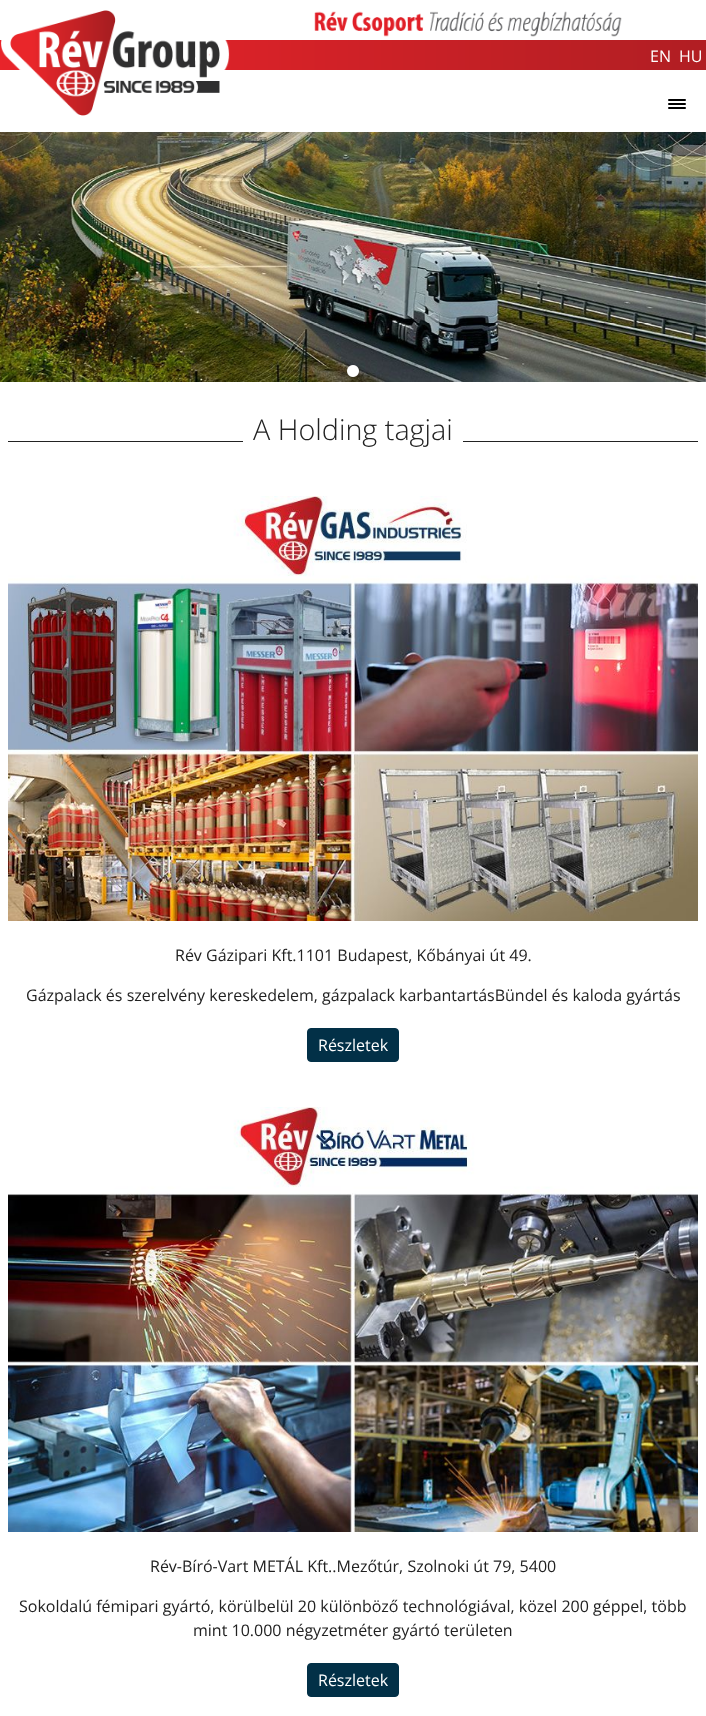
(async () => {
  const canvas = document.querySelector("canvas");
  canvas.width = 706;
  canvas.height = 1716;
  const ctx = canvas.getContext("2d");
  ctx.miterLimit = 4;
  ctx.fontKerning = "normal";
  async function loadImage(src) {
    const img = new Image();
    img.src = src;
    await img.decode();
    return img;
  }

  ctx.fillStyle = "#ffffff";
  ctx.fillRect(0, 0, 706, 1716);
  ctx.drawImage(await loadImage("img/1.png"), 0, 40, 706, 30);
  ctx.drawImage(await loadImage("img/2.png"), 1, 10, 229, 106);
  ctx.drawImage(await loadImage("img/3.png"), 314, 11, 308, 26);
  ctx.fillStyle = "#000000";
  ctx.beginPath();
  ctx.roundRect(668, 99, 18, 2, 1);
  ctx.fill();
  ctx.beginPath();
  ctx.roundRect(668, 103, 18, 2, 1);
  ctx.fill();
  ctx.beginPath();
  ctx.roundRect(668, 107, 18, 2, 1);
  ctx.fill();
  ctx.drawImage(await loadImage("img/4.png"), 0, 132, 706, 250);
  ctx.drawImage(await loadImage("img/5.png"), 347, 365, 12, 12);
  ctx.fillStyle = "#222222";
  ctx.fillRect(8, 441, 690, 1);
  ctx.fillStyle = "#ffffff";
  ctx.fillRect(243, 441, 220, 1);
  ctx.drawImage(await loadImage("img/6.png"), 8, 496, 690, 425);
  ctx.fillStyle = "#023047";
  ctx.beginPath();
  ctx.roundRect(307.5, 1028.5, 91, 33, 3.5);
  ctx.fill();
  ctx.strokeStyle = "#023047";
  ctx.stroke();
  ctx.drawImage(await loadImage("img/7.png"), 8, 1107, 690, 425);
  ctx.beginPath();
  ctx.roundRect(307.5, 1663.5, 91, 33, 3.5);
  ctx.fill();
  ctx.stroke();
  ctx.font = "16px Open Sans";
  ctx.fillStyle = "#ffffff";
  ctx.fillText("EN", 650, 62);
  ctx.fillText("HU", 679, 62);
  ctx.font = "300 28.75px Open Sans";
  ctx.fillStyle = "#222222";
  ctx.fillText("A Holding tagjai", 253, 440);
  ctx.font = "16px Open Sans";
  ctx.fillText("Rév Gázipari Kft.1101 Budapest, Kőbányai út 49.", 175, 961);
  ctx.fillText("Gázpalack és szerelvény kereskedelem, gázpalack karbantartásBündel és kaloda gyártás", 26, 1001);
  ctx.fillStyle = "#ffffff";
  ctx.fillText("Részletek", 318, 1051);
  ctx.fillStyle = "#222222";
  for (const [text, x, y] of [
    ["Rév-Bíró-Vart METÁL Kft..Mezőtúr, Szolnoki út 79, 5400", 150, 1572],
    ["Sokoldalú fémipari gyártó, körülbelül 20 különböző technológiával, közel 200 géppel, több", 19, 1612],
    ["mint 10.000 négyzetméter gyártó területen", 193, 1636],
  ]) {
    ctx.fillText(text, x, y);
  }
  ctx.fillStyle = "#ffffff";
  ctx.fillText("Részletek", 318, 1686);
})();
